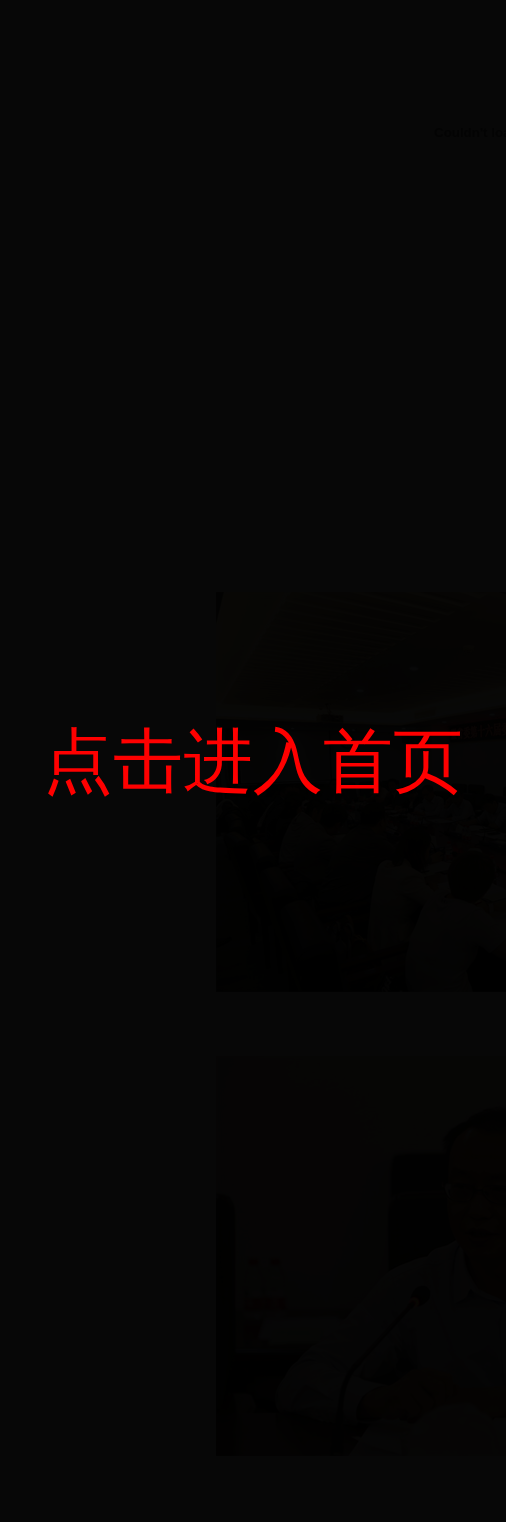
(async () => {
  const canvas = document.querySelector("canvas");
  canvas.width = 506;
  canvas.height = 1522;
  const ctx = canvas.getContext("2d");
  ctx.miterLimit = 4;
  ctx.fontKerning = "normal";
  async function loadImage(src) {
    const img = new Image();
    img.src = src;
    await img.decode();
    return img;
  }

  ctx.fillStyle = "#070707";
  ctx.fillRect(0, 0, 506, 1522);
  ctx.drawImage(await loadImage("img/1.png"), 434, 128, 72, 9);
  ctx.drawImage(await loadImage("img/2.png"), 216, 592, 290, 400);
  ctx.drawImage(await loadImage("img/3.png"), 216, 1056, 290, 400);
  ctx.font = "500 70px WenQuanYi Zen Hei";
  ctx.fillStyle = "#ff0000";
  ctx.fillText("点击进入首页", 43, 785);
})();
